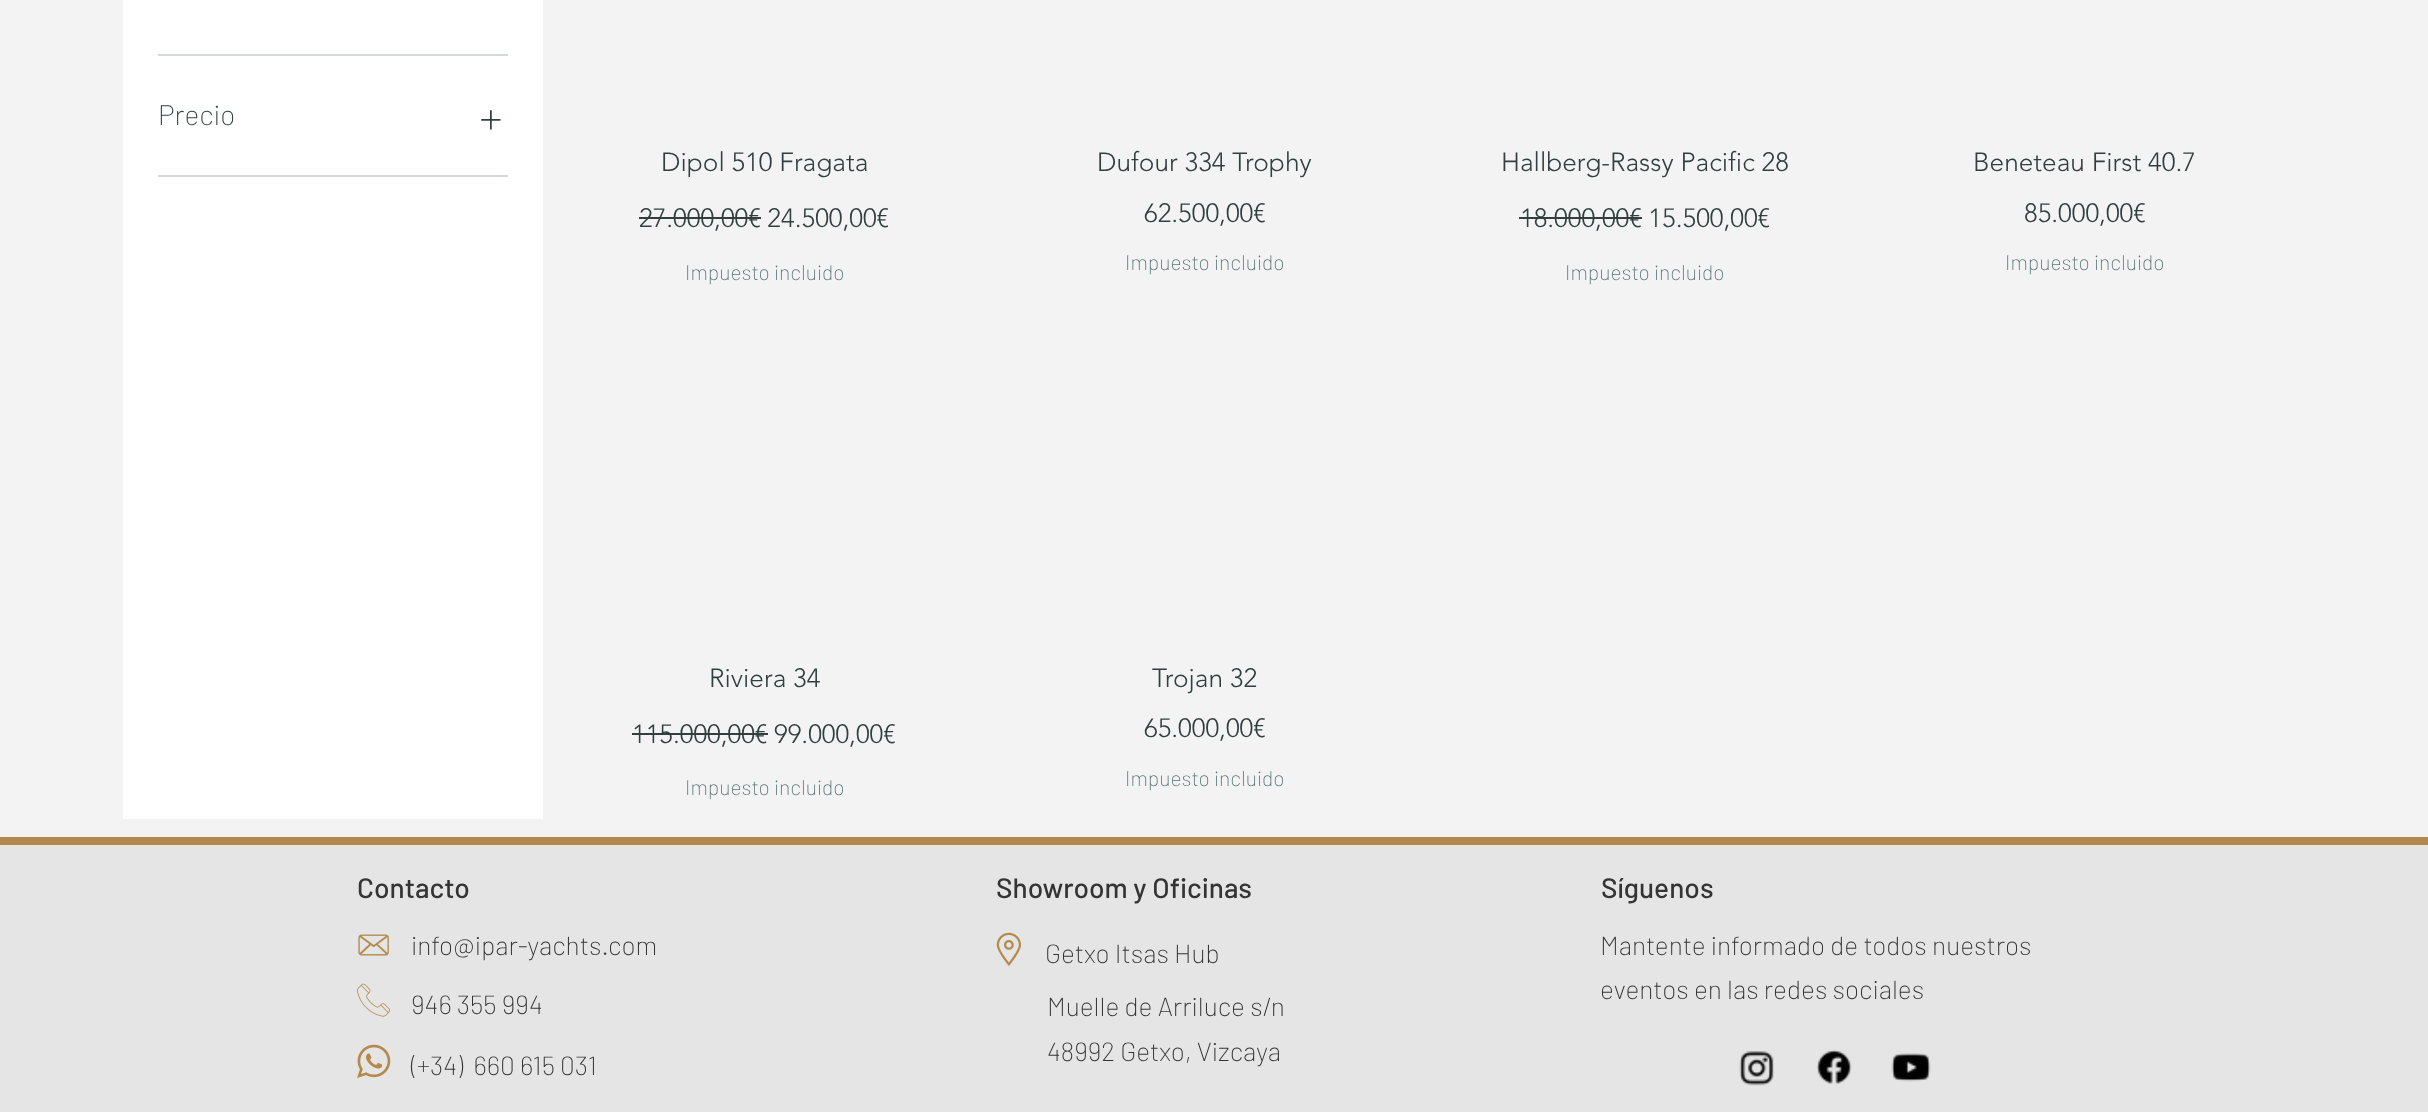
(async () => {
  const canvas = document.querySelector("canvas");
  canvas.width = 2428;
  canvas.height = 1112;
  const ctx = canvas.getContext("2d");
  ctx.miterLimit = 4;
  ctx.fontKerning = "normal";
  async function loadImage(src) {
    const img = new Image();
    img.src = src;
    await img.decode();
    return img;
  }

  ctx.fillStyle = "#f3f3f3";
  ctx.fillRect(0, 0, 2428, 1112);
  for (const [x, y, w, h, color] of [
    [123, 0, 420, 819, "#ffffff"],
    [158, 54, 350, 2, "#d6d9d9"],
    [158, 175, 350, 2, "#d6d9d9"],
  ]) {
    ctx.fillStyle = color;
    ctx.fillRect(x, y, w, h);
  }
  ctx.drawImage(await loadImage("img/1.png"), 481, 110, 20, 20);
  for (const [x, y, w, h, color] of [
    [639, 217, 122, 2, "#31403f"],
    [1519, 217, 123, 2, "#31403f"],
    [632, 733, 136, 2, "#31403f"],
    [0, 845, 2428, 267, "#e5e5e5"],
    [0, 837, 2428, 8, "#b38a4c"],
  ]) {
    ctx.fillStyle = color;
    ctx.fillRect(x, y, w, h);
  }
  ctx.drawImage(await loadImage("img/2.png"), 996, 932, 25, 34);
  ctx.drawImage(await loadImage("img/3.png"), 358, 934, 31, 22);
  ctx.drawImage(await loadImage("img/4.png"), 357, 983, 34, 34);
  ctx.drawImage(await loadImage("img/5.png"), 357, 1044, 34, 34);
  ctx.drawImage(await loadImage("img/6.png"), 1739, 1051, 35, 35);
  ctx.drawImage(await loadImage("img/7.png"), 1816, 1049, 36, 35);
  ctx.drawImage(await loadImage("img/8.png"), 1891, 1053, 40, 29);
  ctx.font = "200 28px Barlow";
  ctx.fillStyle = "#31403f";
  ctx.fillText("Precio", 158, 125);
  ctx.font = "300 26.25px 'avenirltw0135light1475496'";
  ctx.fillText("Dipol 510 Fragata", 661, 171);
  ctx.fillText("27.000,00€ 24.500,00€", 639, 227);
  ctx.font = "200 21px Barlow";
  ctx.fillStyle = "#5c7876";
  ctx.fillText("Impuesto incluido", 685, 280);
  ctx.font = "300 26.25px 'avenirltw0135light1475496'";
  ctx.fillStyle = "#31403f";
  ctx.fillText("Dufour 334 Trophy", 1097, 171);
  ctx.fillText("62.500,00€", 1144, 222);
  ctx.font = "200 21px Barlow";
  ctx.fillStyle = "#5c7876";
  ctx.fillText("Impuesto incluido", 1125, 270);
  ctx.font = "300 26.25px 'avenirltw0135light1475496'";
  ctx.fillStyle = "#31403f";
  ctx.fillText("Hallberg-Rassy Pacific 28", 1501, 171);
  ctx.fillText("18.000,00€ 15.500,00€", 1520, 227);
  ctx.font = "200 21px Barlow";
  ctx.fillStyle = "#5c7876";
  ctx.fillText("Impuesto incluido", 1565, 280);
  ctx.font = "300 26.25px 'avenirltw0135light1475496'";
  ctx.fillStyle = "#31403f";
  ctx.fillText("Beneteau First 40.7", 1973, 171);
  ctx.fillText("85.000,00€", 2024, 222);
  ctx.font = "200 21px Barlow";
  ctx.fillStyle = "#5c7876";
  ctx.fillText("Impuesto incluido", 2005, 270);
  ctx.font = "300 26.25px 'avenirltw0135light1475496'";
  ctx.fillStyle = "#31403f";
  ctx.fillText("Riviera 34", 709, 687);
  ctx.fillText("115.000,00€ 99.000,00€", 632, 743);
  ctx.font = "200 21px Barlow";
  ctx.fillStyle = "#5c7876";
  ctx.fillText("Impuesto incluido", 685, 795);
  ctx.font = "300 26.25px 'avenirltw0135light1475496'";
  ctx.fillStyle = "#31403f";
  ctx.fillText("Trojan 32", 1152, 687);
  ctx.fillText("65.000,00€", 1144, 737);
  ctx.font = "200 21px Barlow";
  ctx.fillStyle = "#5c7876";
  ctx.fillText("Impuesto incluido", 1125, 786);
  ctx.font = "500 28px Barlow";
  ctx.fillStyle = "#343434";
  ctx.fillText("Contacto", 357, 898);
  ctx.fillText("Showroom y Oficinas", 996, 898);
  ctx.font = "200 26.25px Barlow";
  for (const [text, x, y] of [
    ["Getxo Itsas Hub", 1045, 963],
    ["Muelle de Arriluce s/n", 1047, 1016],
    ["48992 Getxo, Vizcaya", 1047, 1061],
  ]) {
    ctx.fillText(text, x, y);
  }
  ctx.font = "500 28px Barlow";
  ctx.fillText("Síguenos", 1601, 898);
  ctx.font = "200 26.25px Barlow";
  for (const [text, x, y] of [
    ["info@ipar-yachts.com", 411, 955],
    ["Mantente informado de todos nuestros", 1600, 955],
    ["eventos en las redes sociales", 1600, 999],
    ["946 355 994", 411, 1014],
    ["(+34)  660 615 031", 411, 1075],
  ]) {
    ctx.fillText(text, x, y);
  }
})();
